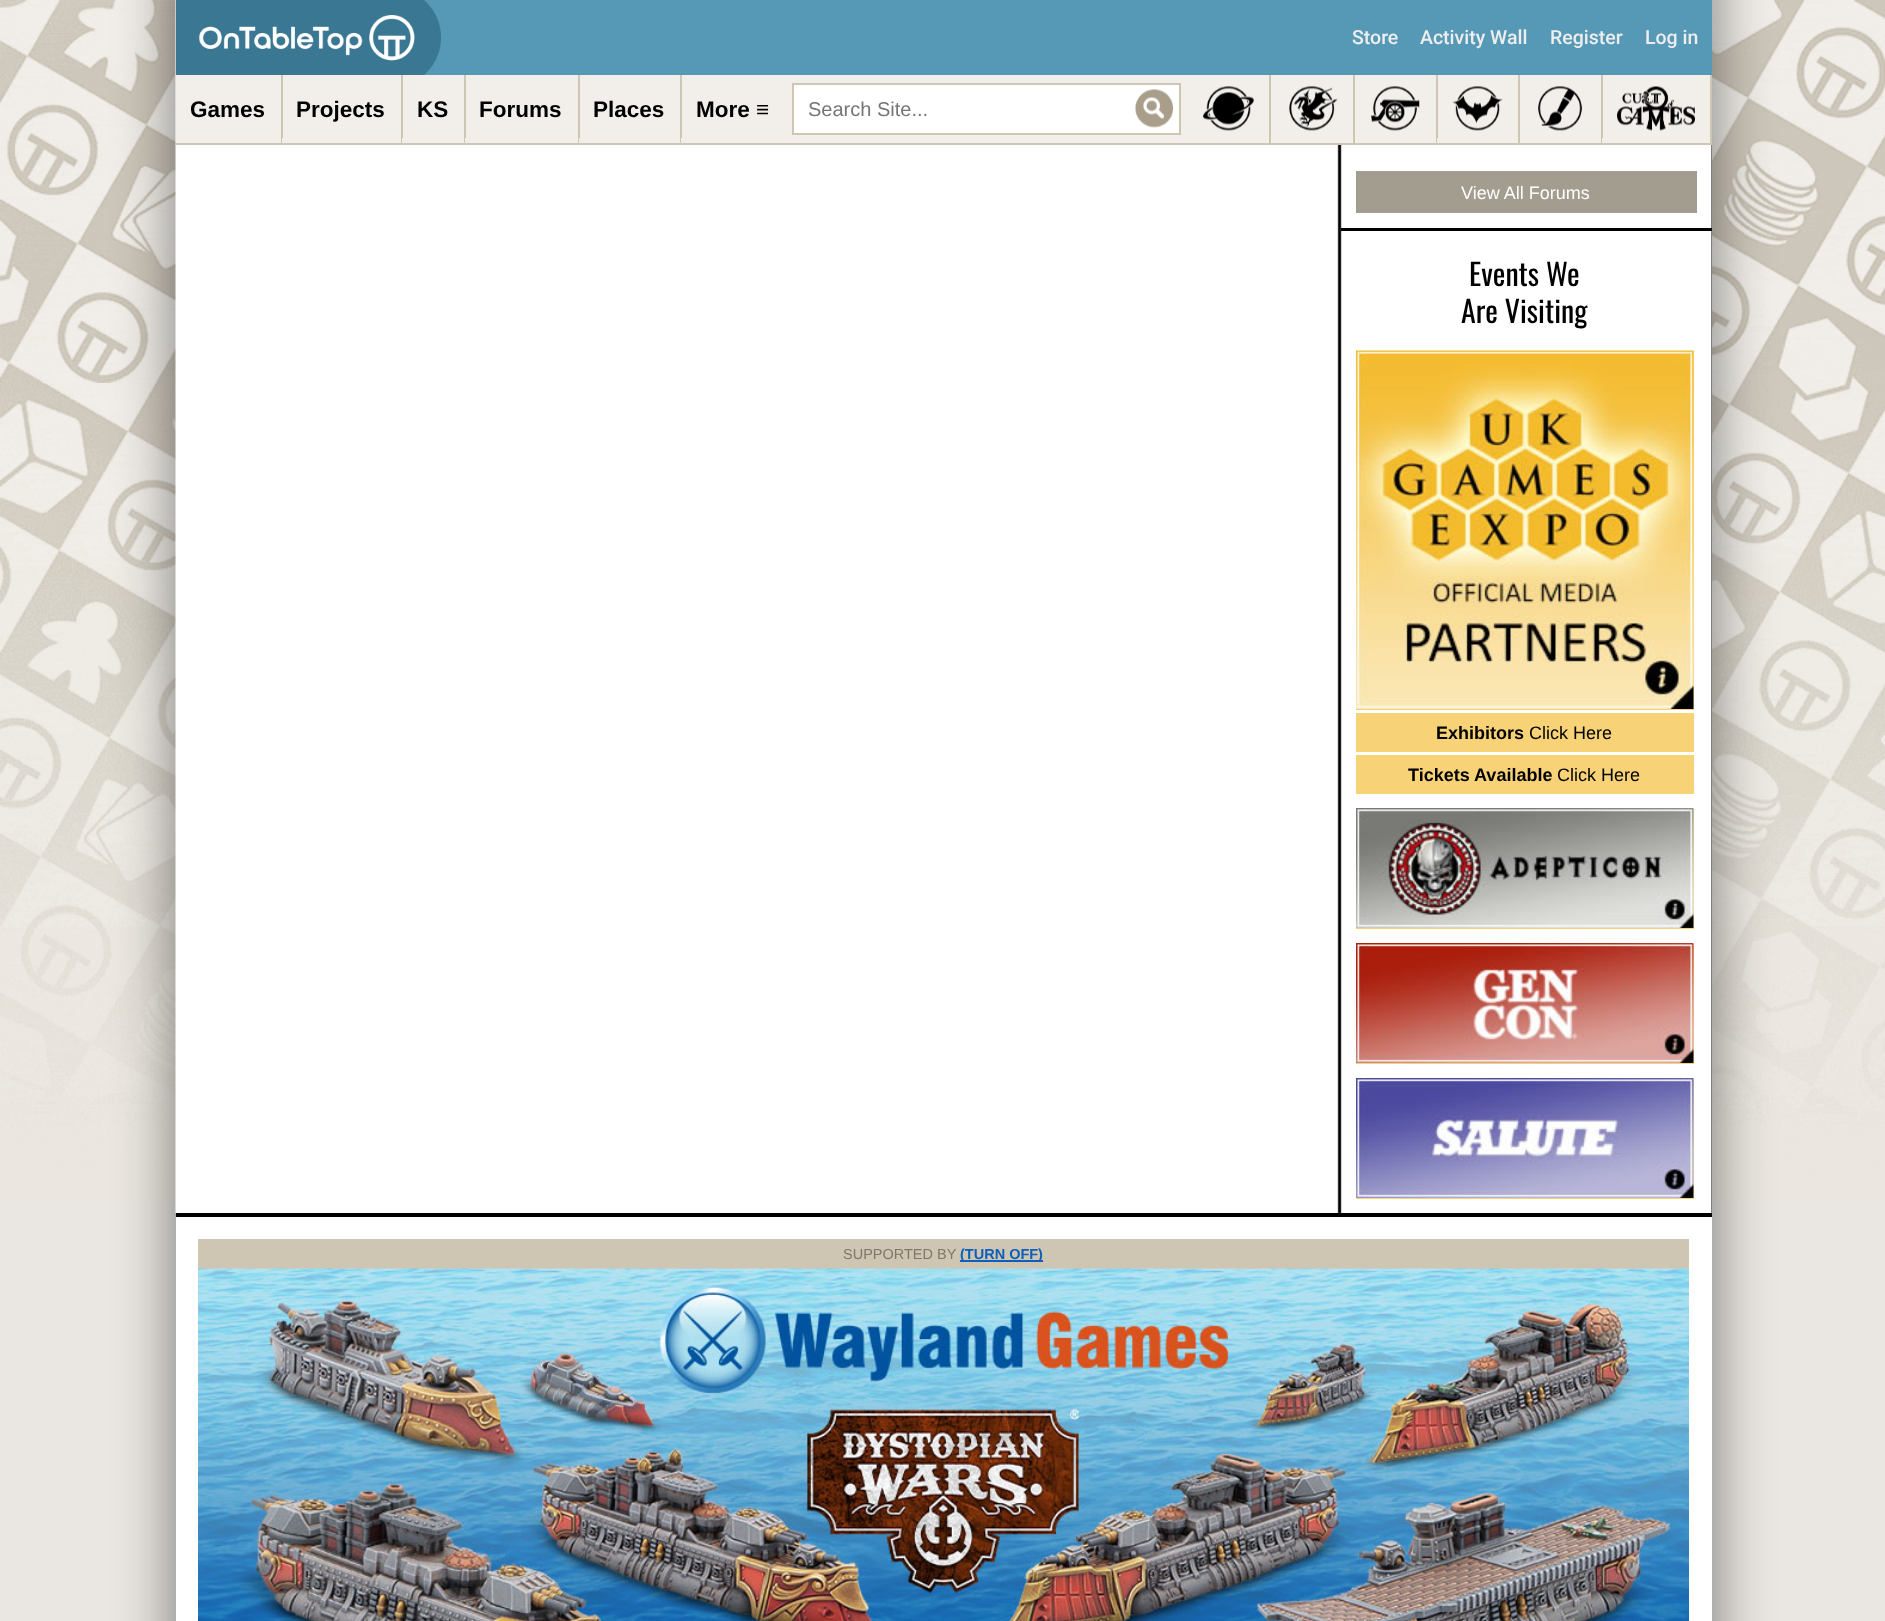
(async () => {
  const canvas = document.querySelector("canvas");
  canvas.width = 1885;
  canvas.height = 1621;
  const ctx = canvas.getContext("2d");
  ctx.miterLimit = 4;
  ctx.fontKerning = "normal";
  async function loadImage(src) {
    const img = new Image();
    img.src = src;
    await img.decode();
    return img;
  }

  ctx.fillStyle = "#eae7e2";
  ctx.fillRect(0, 0, 1885, 1621);
  ctx.drawImage(await loadImage("img/1.png"), 0, 0, 1885, 1200);
  ctx.fillStyle = "rgba(0, 0, 0, 0.5)";
  ctx.filter = "blur(30px)";
  ctx.beginPath();
  ctx.rect(176, -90, 1536, 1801);
  ctx.fill();
  ctx.filter = "none";
  ctx.fillStyle = "#000000";
  ctx.fillRect(176, 145, 1536, 1072);
  ctx.drawImage(await loadImage("img/10.png"), 175, 0, 1537, 1213);
  ctx.fillStyle = "#5699b6";
  ctx.fillRect(441, 0, 1271, 75);
  ctx.fillStyle = "#3a7792";
  ctx.fillRect(176, 0, 265, 75);
  ctx.drawImage(await loadImage("img/2.png"), 198, 0, 243, 75);
  for (const [x, y, w, h, color] of [
    [176, 75, 1534, 68, "#f2efea"],
    [176, 143, 1536, 2, "#cec5b3"],
    [281, 75, 2, 68, "#cec5b3"],
    [401, 75, 2, 68, "#cec5b3"],
    [282, 138, 1, 5, "#f2efea"],
    [464, 75, 2, 68, "#cec5b3"],
    [402, 138, 1, 5, "#f2efea"],
    [578, 75, 2, 68, "#cec5b3"],
    [465, 138, 1, 5, "#f2efea"],
    [680, 75, 2, 68, "#cec5b3"],
    [579, 138, 1, 5, "#f2efea"],
    [681, 138, 1, 5, "#f2efea"],
  ]) {
    ctx.fillStyle = color;
    ctx.fillRect(x, y, w, h);
  }
  ctx.fillStyle = "#ffffff";
  ctx.beginPath();
  ctx.rect(793, 84, 387, 50);
  ctx.fill();
  ctx.strokeStyle = "#cec5b3";
  ctx.lineWidth = 2;
  ctx.stroke();
  ctx.drawImage(await loadImage("img/3.png"), 1135, 89, 38, 39);
  ctx.fillStyle = "#cec5b3";
  ctx.fillRect(1269, 75, 2, 68);
  ctx.drawImage(await loadImage("img/4.png"), 1203, 86, 51, 45);
  ctx.fillRect(1353, 75, 2, 68);
  ctx.drawImage(await loadImage("img/5.png"), 1289, 86, 49, 45);
  ctx.fillRect(1436, 75, 2, 68);
  ctx.drawImage(await loadImage("img/6.png"), 1371, 86, 49, 45);
  ctx.fillRect(1518, 75, 2, 68);
  ctx.fillStyle = "#f2efea";
  ctx.fillRect(1437, 138, 1, 5);
  ctx.drawImage(await loadImage("img/7.png"), 1452, 86, 51, 45);
  ctx.fillStyle = "#cec5b3";
  ctx.fillRect(1601, 75, 2, 68);
  ctx.drawImage(await loadImage("img/8.png"), 1538, 86, 44, 45);
  ctx.fillRect(1710, 75, 2, 68);
  ctx.fillStyle = "#f2efea";
  ctx.fillRect(1602, 138, 1, 5);
  ctx.drawImage(await loadImage("img/9.png"), 1617, 86, 78, 45);
  for (const [x, y, w, h, color] of [
    [1341, 228, 371, 3, "#000000"],
    [1356, 171, 341, 42, "#a39d8f"],
    [1356, 351, 338, 359, "#f8d276"],
  ]) {
    ctx.fillStyle = color;
    ctx.fillRect(x, y, w, h);
  }
  ctx.drawImage(await loadImage("img/11.png"), 1356, 350, 338, 359);
  for (const [x, y, w, h, color] of [
    [1356, 713, 338, 39, "#f8d276"],
    [1356, 755, 338, 39, "#f8d276"],
    [1356, 809, 338, 120, "#f8d276"],
  ]) {
    ctx.fillStyle = color;
    ctx.fillRect(x, y, w, h);
  }
  ctx.drawImage(await loadImage("img/12.png"), 1356, 808, 338, 120);
  ctx.fillRect(1356, 944, 338, 120);
  ctx.drawImage(await loadImage("img/13.png"), 1356, 943, 338, 120);
  ctx.fillRect(1356, 1079, 338, 120);
  ctx.drawImage(await loadImage("img/14.png"), 1356, 1078, 338, 120);
  for (const [x, y, w, h, color] of [
    [176, 1217, 1536, 404, "#ffffff"],
    [198, 1239, 1491, 30, "#cec5b3"],
    [960, 1260, 83, 2, "#0d5fbc"],
  ]) {
    ctx.fillStyle = color;
    ctx.fillRect(x, y, w, h);
  }
  ctx.drawImage(await loadImage("img/15.png"), 198, 1268, 1491, 353);
  ctx.font = "500 19.5px Roboto";
  ctx.fillStyle = "#eeeeee";
  for (const [text, x, y] of [
    ["Store", 1352, 44],
    ["Activity Wall", 1420, 44],
    ["Register", 1550, 44],
    ["Log in", 1645, 44],
  ]) {
    ctx.fillText(text, x, y);
  }
  ctx.font = "bold 22.5px Liberation Sans";
  ctx.fillStyle = "#000000";
  for (const [text, x, y] of [
    ["Games", 190, 117],
    ["Projects", 296, 117],
    ["KS", 417, 117],
    ["Forums", 479, 117],
    ["Places", 593, 117],
    ["More ≡", 696, 117],
  ]) {
    ctx.fillText(text, x, y);
  }
  ctx.font = "20px Liberation Sans";
  ctx.fillStyle = "#757575";
  ctx.fillText("Search Site...", 808, 116);
  ctx.font = "18px Liberation Sans";
  ctx.fillStyle = "#ffffff";
  ctx.fillText("View All Forums", 1461, 199);
  ctx.font = "30px Oswald";
  ctx.fillStyle = "#000000";
  ctx.fillText("Events We", 1469, 286);
  ctx.fillText("Are Visiting", 1461, 323);
  ctx.font = "bold 18px Liberation Sans";
  ctx.fillText("Exhibitors", 1436, 739);
  ctx.font = "18px Liberation Sans";
  ctx.fillText("Click Here", 1529, 739);
  ctx.font = "bold 18px Liberation Sans";
  ctx.fillText("Tickets Available", 1408, 781);
  ctx.font = "18px Liberation Sans";
  ctx.fillText("Click Here", 1557, 781);
  ctx.font = "14.5px Liberation Sans";
  ctx.fillStyle = "#7f7867";
  ctx.fillText("SUPPORTED BY", 843, 1259);
  ctx.font = "bold 14.5px Liberation Sans";
  ctx.fillStyle = "#0d5fbc";
  ctx.fillText("(TURN OFF)", 960, 1259);
})();
